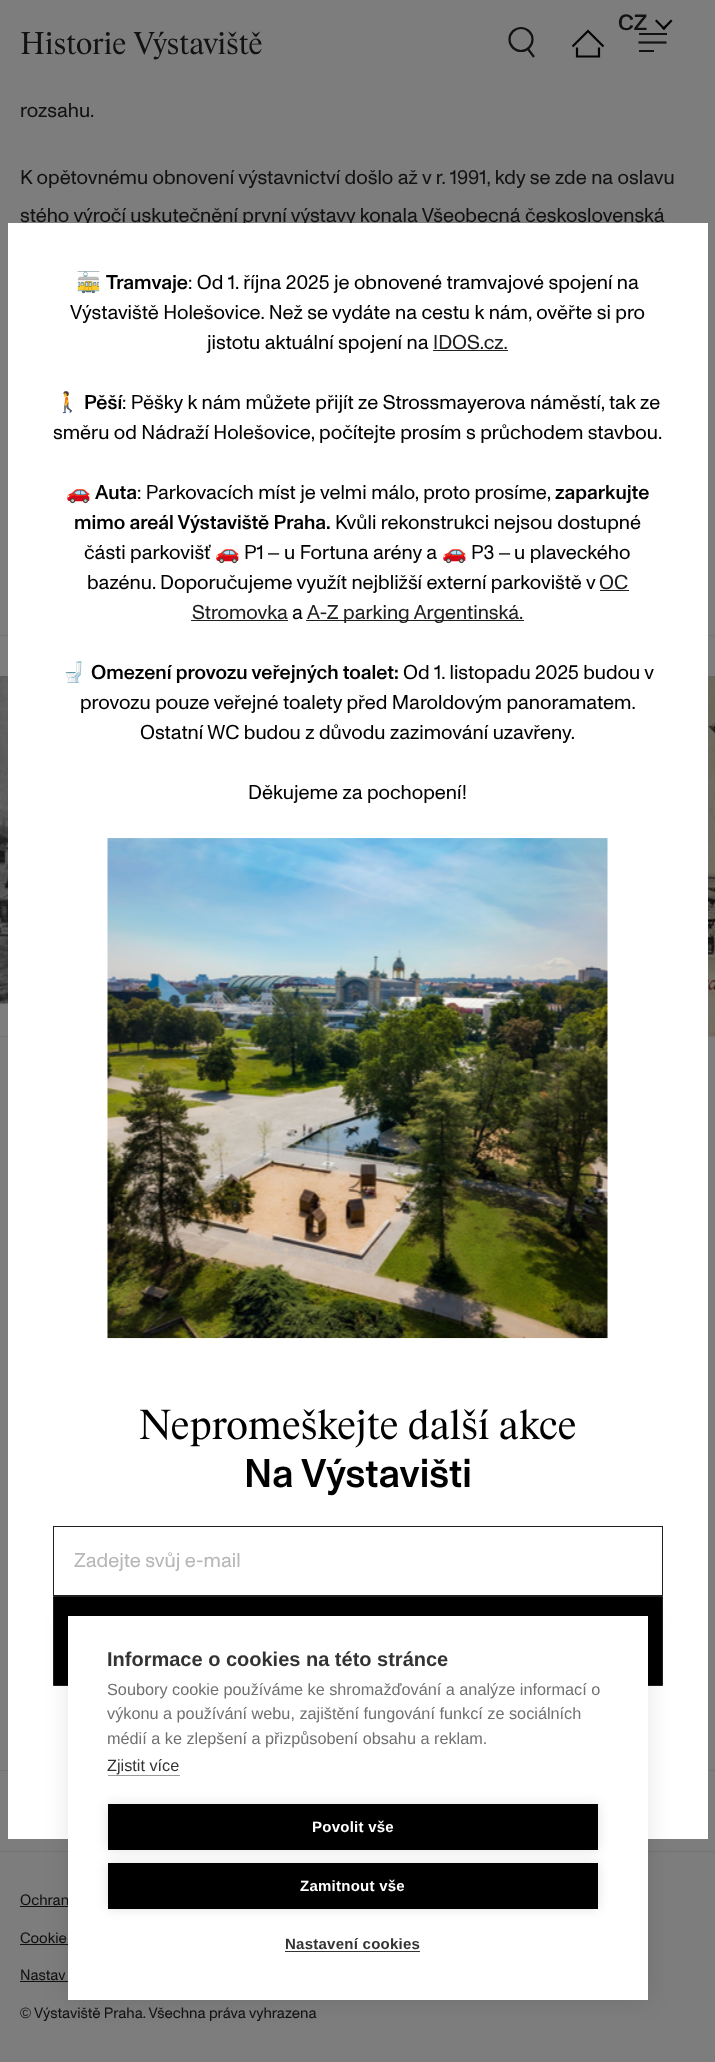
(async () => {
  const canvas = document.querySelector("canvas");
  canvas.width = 715;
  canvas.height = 2062;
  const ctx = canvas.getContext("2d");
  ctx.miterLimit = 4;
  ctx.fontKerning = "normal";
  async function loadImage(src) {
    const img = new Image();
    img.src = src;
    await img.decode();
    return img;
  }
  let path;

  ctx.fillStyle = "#7d7d7d";
  ctx.fillRect(0, 0, 715, 2062);
  ctx.fillStyle = "#030303";
  path = new Path2D("M671 19.5L672.5 21L664 30L662 28.5Z");
  ctx.fill(path);
  path = new Path2D("M656.5 19.5L665.5 28.5L664 30L655 21Z");
  ctx.fill(path);
  ctx.beginPath();
  ctx.arc(521, 39.5, 11.5, 0, Math.PI * 2);
  ctx.strokeStyle = "#121212";
  ctx.lineWidth = 2.2;
  ctx.stroke();
  path = new Path2D("M528 49L534 57");
  ctx.stroke(path);
  path = new Path2D("M577 47.5V56.5H599V47.5M572.5 46.5L588 31L603.5 46.5");
  ctx.strokeStyle = "#030303";
  ctx.stroke(path);
  ctx.fillStyle = "#121212";
  ctx.fillRect(639, 33, 28, 2);
  path = new Path2D("M638.5 42.5H666.5");
  ctx.strokeStyle = "#121212";
  ctx.stroke(path);
  ctx.fillRect(639, 50, 15, 2);
  ctx.fillStyle = "#747474";
  ctx.fillRect(0, 635, 715, 1);
  ctx.drawImage(await loadImage("img/1.png"), 0, 676, 8, 360);
  ctx.drawImage(await loadImage("img/2.png"), 708, 676, 7, 360);
  for (const [x, y, w, h, color] of [
    [0, 1036, 715, 1, "#747474"],
    [0, 1770, 715, 1, "#747474"],
    [0, 1851, 715, 1, "#747474"],
    [20, 1906, 48, 1, "#121212"],
    [20, 1944, 54, 1, "#121212"],
    [20, 1981, 48, 1, "#121212"],
  ]) {
    ctx.fillStyle = color;
    ctx.fillRect(x, y, w, h);
  }
  ctx.font = "500 22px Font";
  ctx.fillText("CZ", 618, 30);
  ctx.font = "30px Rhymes";
  ctx.fillText("Historie Výstaviště", 20, 54);
  ctx.font = "20px Font";
  for (const [text, x, y] of [
    ["rozsahu.", 20, 117],
    ["K opětovnému obnovení výstavnictví došlo až v r. 1991, kdy se zde na oslavu", 20, 184],
    ["stého výročí uskutečnění první výstavy konala Všeobecná československá", 20, 222],
  ]) {
    ctx.fillText(text, x, y);
  }
  ctx.fillStyle = "#ffffff";
  ctx.fillRect(8, 223, 700, 1616);
  ctx.font = "20px Noto Color Emoji";
  ctx.fillStyle = "#000000";
  ctx.fillText("🚋", 76, 289);
  ctx.font = "500 20px Font";
  ctx.fillText("Tramvaje", 106, 289);
  ctx.font = "20px Font";
  for (const [text, x, y] of [
    [": Od 1. října 2025 je obnovené tramvajové spojení na", 188, 289],
    ["Výstaviště Holešovice. Než se vydáte na cestu k nám, ověřte si pro", 70, 319],
    ["jistotu aktuální spojení na", 207, 349],
  ]) {
    ctx.fillText(text, x, y);
  }
  ctx.fillStyle = "#202020";
  ctx.fillText("IDOS.cz.", 433, 349);
  ctx.fillRect(433, 350, 75, 1);
  ctx.font = "20px Noto Color Emoji";
  ctx.fillStyle = "#000000";
  ctx.fillText("🚶", 55, 409);
  ctx.font = "500 20px Font";
  ctx.fillText("Pěší", 84, 409);
  ctx.font = "20px Font";
  ctx.fillText(": Pěšky k nám můžete přijít ze Strossmayerova náměstí, tak ze", 122, 409);
  ctx.fillText("směru od Nádraží Holešovice, počítejte prosím s průchodem stavbou.", 53, 439);
  ctx.font = "20px Noto Color Emoji";
  ctx.fillText("🚗", 66, 499);
  ctx.font = "500 20px Font";
  ctx.fillText("Auta", 95, 499);
  ctx.font = "20px Font";
  ctx.fillText(": Parkovacích míst je velmi málo, proto prosíme,", 137, 499);
  ctx.font = "500 20px Font";
  ctx.fillText("zaparkujte", 555, 499);
  ctx.fillText("mimo areál Výstaviště Praha.", 74, 529);
  ctx.font = "20px Font";
  ctx.fillText("Kvůli rekonstrukci nejsou dostupné", 335, 529);
  ctx.fillText("části parkovišť", 84, 559);
  ctx.font = "20px Noto Color Emoji";
  ctx.fillText("🚗", 215, 559);
  ctx.font = "20px Font";
  ctx.fillText("P1", 244, 559);
  ctx.font = "20px Liberation Sans";
  ctx.fillText("–", 268, 559);
  ctx.font = "20px Font";
  ctx.fillText("u Fortuna arény a", 284, 559);
  ctx.font = "20px Noto Color Emoji";
  ctx.fillText("🚗", 442, 559);
  ctx.font = "20px Font";
  ctx.fillText("P3", 471, 559);
  ctx.font = "20px Liberation Sans";
  ctx.fillText("–", 499, 559);
  ctx.font = "20px Font";
  ctx.fillText("u plaveckého", 514, 559);
  ctx.fillText("bazénu. Doporučujeme využít nejbližší externí parkoviště v", 87, 589);
  ctx.fillStyle = "#202020";
  ctx.fillText("OC", 599, 589);
  ctx.fillRect(600, 590, 29, 1);
  ctx.fillText("Stromovka", 192, 619);
  ctx.fillRect(191, 620, 97, 1);
  ctx.fillStyle = "#000000";
  ctx.fillText("a", 292, 619);
  ctx.fillStyle = "#202020";
  ctx.fillRect(306, 620, 218, 1);
  ctx.fillText("A-Z parking Argentinská.", 307, 619);
  ctx.font = "20px Noto Color Emoji";
  ctx.fillStyle = "#000000";
  ctx.fillText("🚽", 61, 679);
  ctx.font = "500 20px Font";
  ctx.fillText("Omezení provozu veřejných toalet:", 91, 679);
  ctx.font = "20px Font";
  for (const [text, x, y] of [
    ["Od 1. listopadu 2025 budou v", 403, 679],
    ["provozu pouze veřejné toalety před Maroldovým panoramatem.", 80, 709],
    ["Ostatní WC budou z důvodu zazimování uzavřeny.", 140, 739],
    ["Děkujeme za pochopení!", 248, 799],
  ]) {
    ctx.fillText(text, x, y);
  }
  ctx.drawImage(await loadImage("img/3.png"), 107, 838, 501, 501);
  ctx.font = "40px Rhymes";
  ctx.fillText("Nepromeškejte další akce", 139, 1439);
  ctx.font = "500 40px Font";
  ctx.fillText("Na Výstavišti", 244, 1487);
  ctx.strokeStyle = "#202020";
  ctx.lineWidth = 1;
  ctx.strokeRect(53.5, 1526.5, 609, 69);
  ctx.font = "20px Font";
  ctx.fillStyle = "#b7b7b7";
  ctx.fillText("Zadejte svůj e-mail", 74, 1567);
  ctx.fillStyle = "#000000";
  ctx.beginPath();
  ctx.rect(53.5, 1596.5, 609, 89);
  ctx.fill();
  ctx.stroke();
  ctx.fillStyle = "rgba(0, 0, 0, 0.1)";
  ctx.filter = "blur(12.5px)";
  ctx.beginPath();
  ctx.rect(68, 1616, 580, 384);
  ctx.fill();
  ctx.filter = "none";
  ctx.font = "15px Font";
  ctx.fillStyle = "#121212";
  ctx.fillText("Ochran", 20, 1905);
  ctx.fillStyle = "#ffffff";
  ctx.fillRect(68, 1616, 580, 384);
  ctx.font = "16.25px Liberation Sans";
  ctx.fillStyle = "#333333";
  ctx.fillText("Zjistit více", 107, 1771);
  ctx.fillStyle = "#999999";
  ctx.fillRect(108, 1775, 72, 1);
  ctx.fillStyle = "#707070";
  for (const [text, x, y] of [
    ["médií a ke zlepšení a přizpůsobení obsahu a reklam.", 107, 1744],
    ["výkonu a používání webu, zajištění fungování funkcí ze sociálních", 107, 1719],
    ["Soubory cookie používáme ke shromažďování a analýze informací o", 107, 1695],
  ]) {
    ctx.fillText(text, x, y);
  }
  ctx.font = "bold 20px Liberation Sans";
  ctx.fillStyle = "#333333";
  ctx.fillText("Informace o cookies na této stránce", 107, 1666);
  ctx.letterSpacing = "0.25px";
  ctx.font = "bold 15px Liberation Sans";
  ctx.fillText("Nastavení cookies", 285, 1949);
  ctx.fillRect(285, 1951, 135, 1);
  ctx.fillStyle = "rgba(0, 0, 0, 0.12)";
  ctx.filter = "blur(6px)";
  ctx.beginPath();
  ctx.rect(108, 1804, 490, 46);
  ctx.fill();
  ctx.filter = "none";
  ctx.fillStyle = "#000000";
  ctx.fillRect(108, 1804, 490, 46);
  ctx.fillStyle = "rgba(0, 0, 0, 0.12)";
  ctx.filter = "blur(6px)";
  ctx.beginPath();
  ctx.rect(108, 1863, 490, 46);
  ctx.fill();
  ctx.filter = "none";
  ctx.fillStyle = "#000000";
  ctx.fillRect(108, 1863, 490, 46);
  ctx.fillStyle = "#ffffff";
  ctx.fillText("Zamitnout vše", 300, 1891);
  ctx.fillText("Povolit vše", 312, 1832);
  ctx.letterSpacing = "0px";
  ctx.font = "15px Font";
  ctx.fillStyle = "#121212";
  ctx.fillText("Cookie", 20, 1943);
  ctx.fillText("Nastav", 20, 1980);
  ctx.font = "15px Liberation Sans";
  ctx.fillText("©", 20, 2018);
  ctx.font = "15px Font";
  ctx.fillText("Výstaviště Praha. Všechna práva vyhrazena", 34, 2018);
})();
